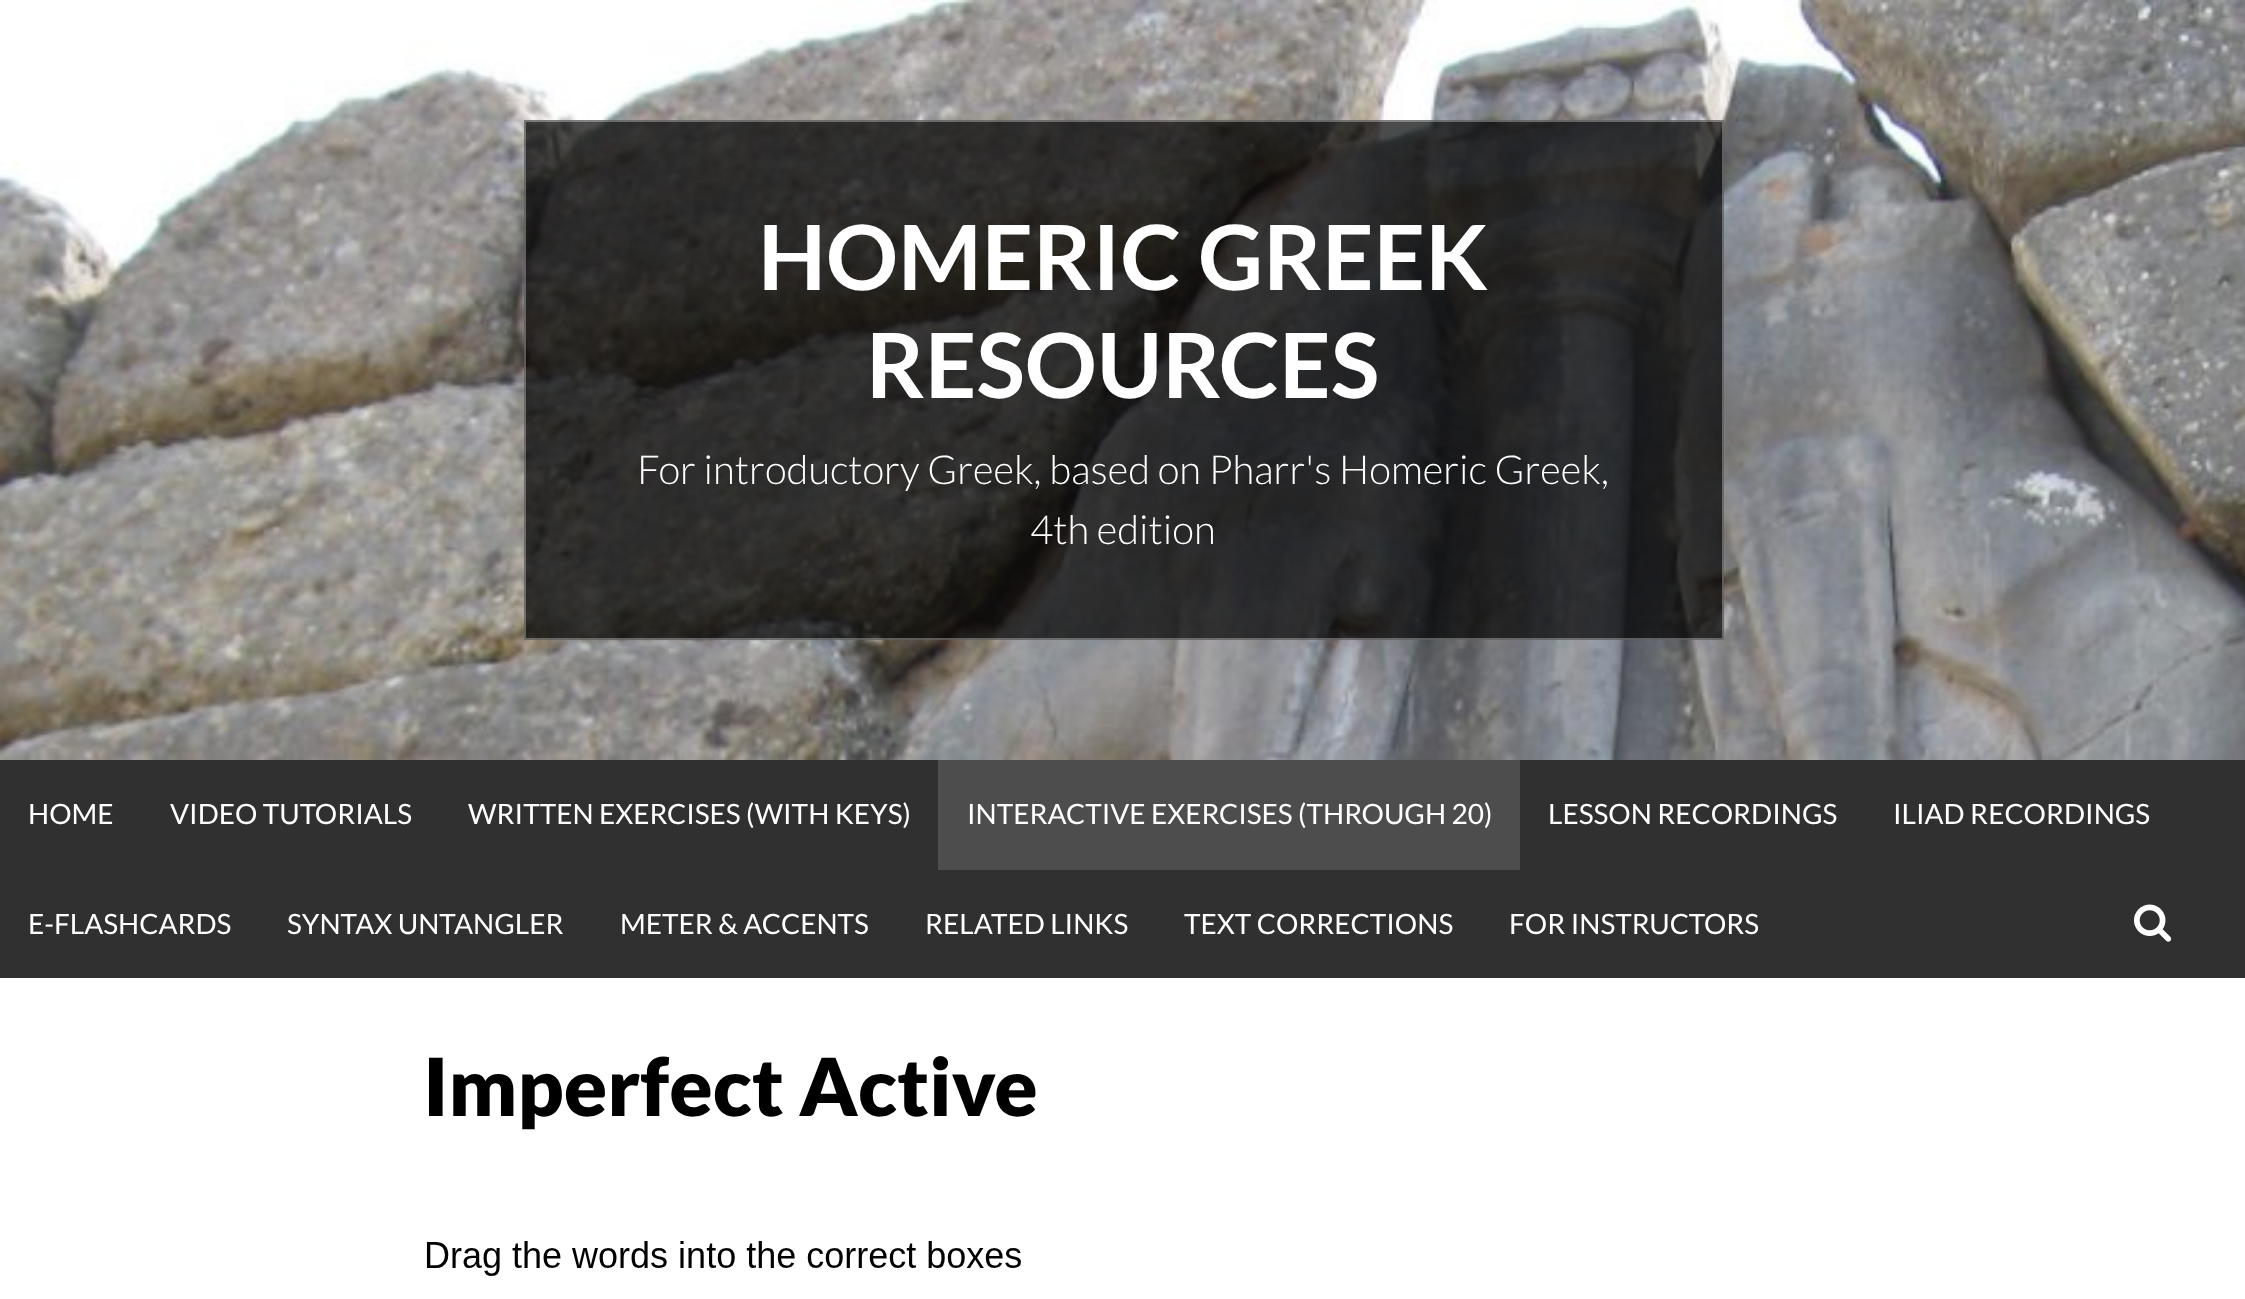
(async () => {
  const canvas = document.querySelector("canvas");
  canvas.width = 2245;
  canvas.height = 1299;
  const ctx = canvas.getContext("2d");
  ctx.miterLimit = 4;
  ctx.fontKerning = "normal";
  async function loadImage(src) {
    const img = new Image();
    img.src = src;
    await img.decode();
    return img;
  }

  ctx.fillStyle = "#ffffff";
  ctx.fillRect(0, 0, 2245, 1299);
  ctx.drawImage(await loadImage("img/1.png"), 0, 0, 2245, 760);
  ctx.fillStyle = "rgba(0, 0, 0, 0.7)";
  ctx.fillRect(524, 120, 1200, 520);
  ctx.strokeStyle = "rgba(255, 255, 255, 0.3)";
  ctx.lineWidth = 2;
  ctx.strokeRect(525, 121, 1198, 518);
  ctx.fillStyle = "#303030";
  ctx.fillRect(0, 760, 2245, 218);
  ctx.fillStyle = "#4d4d4d";
  ctx.fillRect(938, 760, 582, 110);
  ctx.drawImage(await loadImage("img/2.png"), 2134, 904, 38, 38);
  ctx.drawImage(await loadImage("img/3.png"), 426, 1241, 595, 35);
  ctx.font = "bold 90px Lato";
  ctx.fillStyle = "#ffffff";
  ctx.fillText("HOMERIC GREEK", 758, 290);
  ctx.fillText("RESOURCES", 866, 398);
  ctx.font = "300 40px Lato";
  ctx.fillText("For introductory Greek, based on Pharr's Homeric Greek,", 637, 484);
  ctx.fillText("4th edition", 1030, 544);
  ctx.font = "28px Lato";
  for (const [text, x, y] of [
    ["HOME", 28, 824],
    ["VIDEO TUTORIALS", 170, 824],
    ["WRITTEN EXERCISES (WITH KEYS)", 468, 824],
    ["INTERACTIVE EXERCISES (THROUGH 20)", 967, 824],
    ["LESSON RECORDINGS", 1548, 824],
    ["ILIAD RECORDINGS", 1893, 824],
    ["E-FLASHCARDS", 28, 934],
    ["SYNTAX UNTANGLER", 287, 934],
    ["METER & ACCENTS", 620, 934],
    ["RELATED LINKS", 925, 934],
    ["TEXT CORRECTIONS", 1184, 934],
    ["FOR INSTRUCTORS", 1509, 934],
  ]) {
    ctx.fillText(text, x, y);
  }
  ctx.font = "900 80px Lato";
  ctx.fillStyle = "#000000";
  ctx.fillText("Imperfect Active", 423, 1116);
})();
